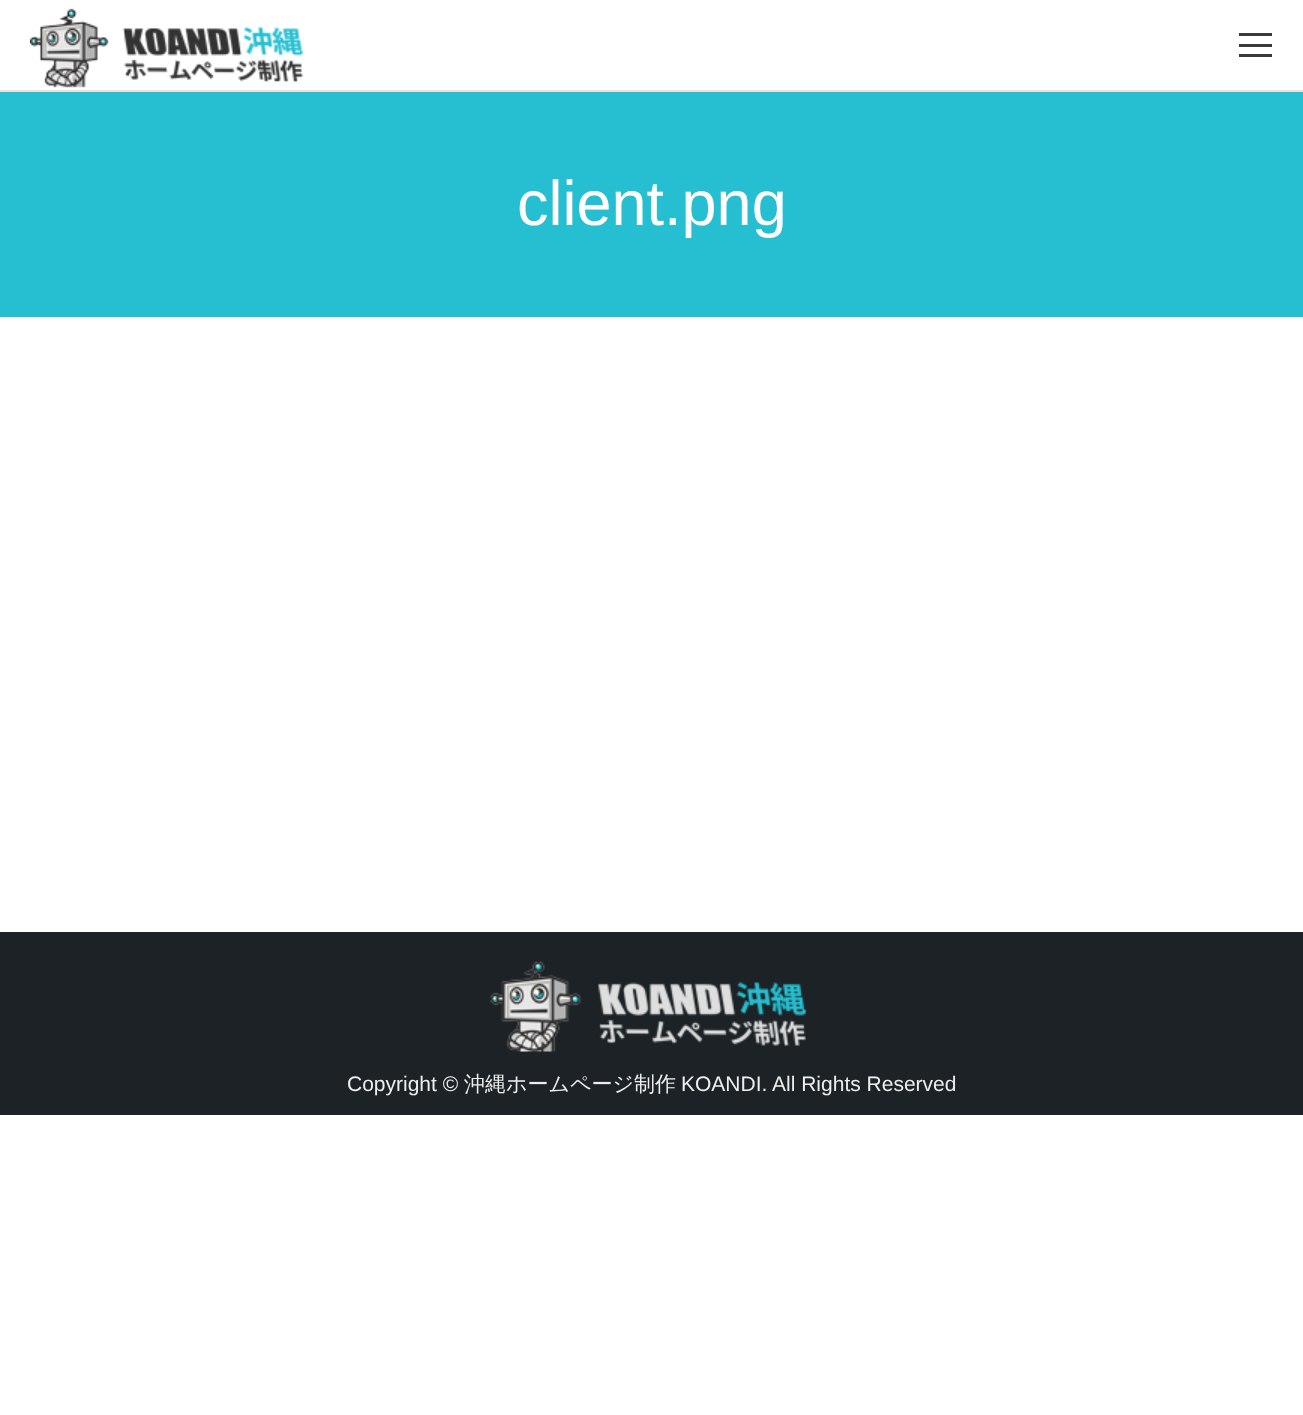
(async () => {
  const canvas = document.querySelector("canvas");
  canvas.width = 1303;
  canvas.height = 1415;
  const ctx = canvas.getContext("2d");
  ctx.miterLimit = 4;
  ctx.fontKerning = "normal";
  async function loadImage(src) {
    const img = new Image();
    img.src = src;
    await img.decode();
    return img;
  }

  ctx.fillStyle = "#ffffff";
  ctx.fillRect(0, 0, 1303, 1415);
  ctx.fillStyle = "#e5e5e5";
  ctx.fillRect(0, 90, 1303, 2);
  ctx.drawImage(await loadImage("img/1.png"), 30, 8, 274, 80);
  for (const [x, y, w, h, color] of [
    [1239, 33, 33, 3, "#3a3a3a"],
    [1239, 44, 33, 3, "#3a3a3a"],
    [1239, 54, 33, 3, "#3a3a3a"],
    [0, 92, 1303, 225, "#26bfd1"],
    [0, 932, 1303, 183, "#1c2226"],
  ]) {
    ctx.fillStyle = color;
    ctx.fillRect(x, y, w, h);
  }
  ctx.drawImage(await loadImage("img/2.png"), 490, 961, 317, 91);
  ctx.font = "63px Liberation Sans";
  ctx.fillStyle = "#ffffff";
  ctx.fillText("client.png", 517, 225);
  ctx.font = "21px Liberation Sans";
  ctx.fillStyle = "#ededed";
  ctx.fillText("Copyright ©", 347, 1091);
  ctx.font = "500 21px WenQuanYi Zen Hei";
  ctx.fillText("沖縄ホームページ制作", 464, 1091);
  ctx.font = "21px Liberation Sans";
  ctx.fillText("KOANDI. All Rights Reserved", 681, 1091);
})();
